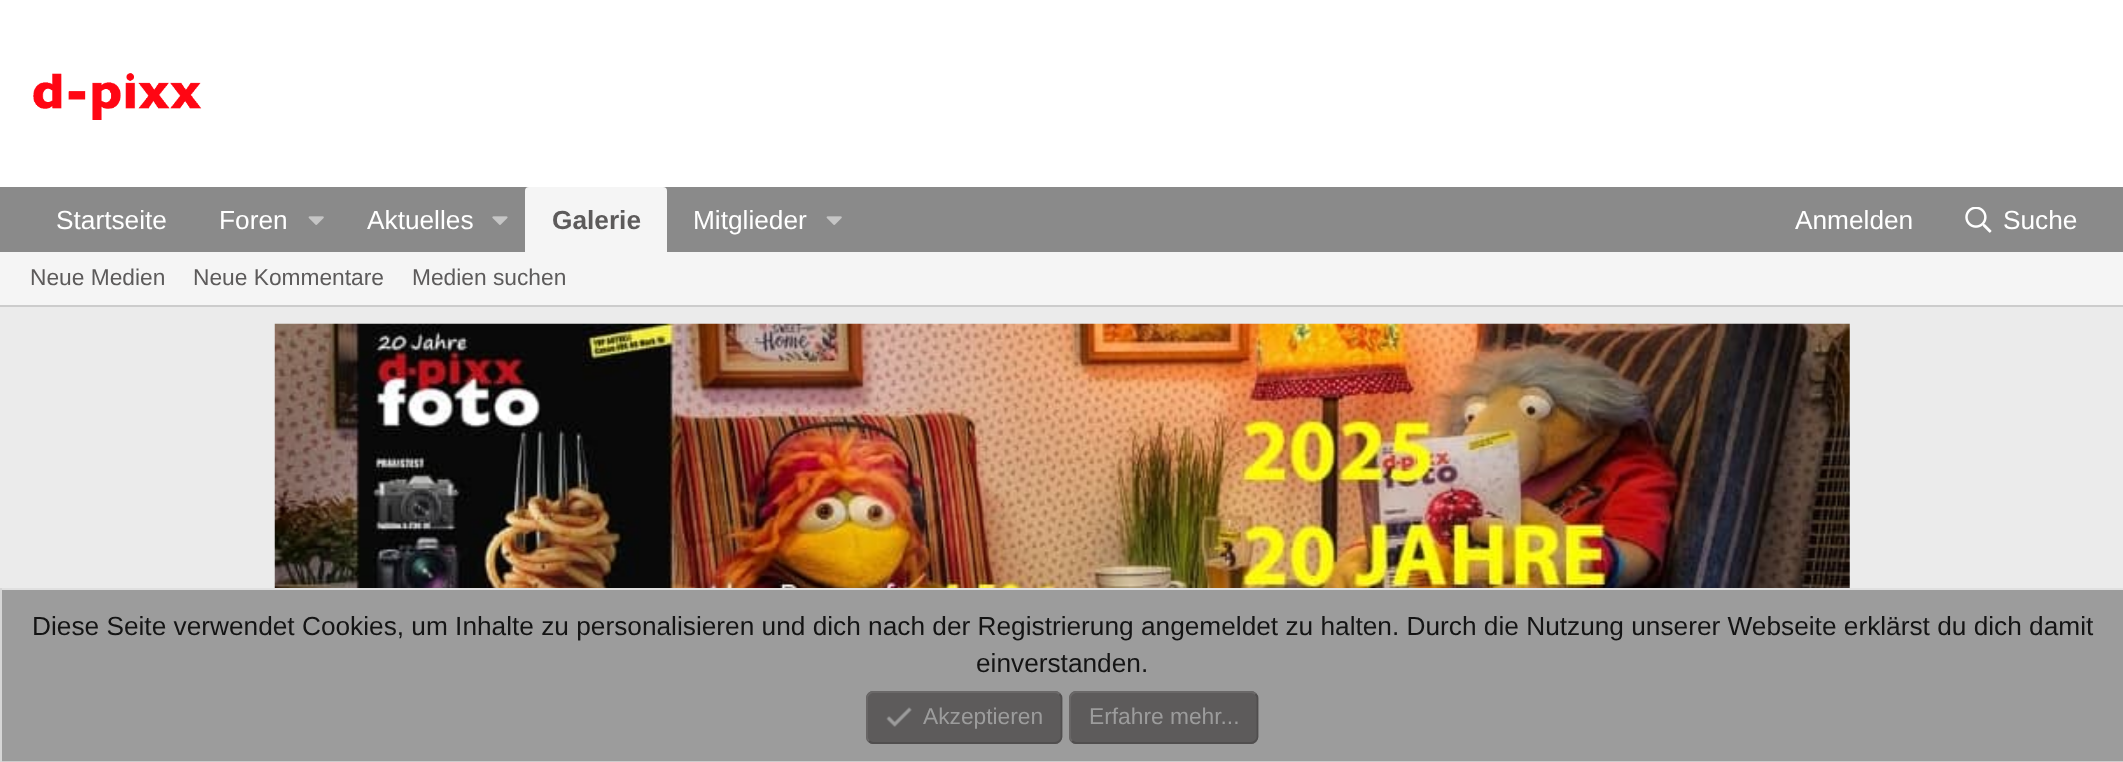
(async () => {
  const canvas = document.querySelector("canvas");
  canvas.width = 2123;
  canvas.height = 762;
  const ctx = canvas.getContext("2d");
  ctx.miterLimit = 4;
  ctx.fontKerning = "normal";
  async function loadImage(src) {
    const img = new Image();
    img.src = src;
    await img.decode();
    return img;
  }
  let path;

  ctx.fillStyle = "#ebebeb";
  ctx.fillRect(0, 0, 2123, 762);
  ctx.fillStyle = "#ffffff";
  ctx.fillRect(0, 0, 2123, 187);
  ctx.drawImage(await loadImage("img/1.png"), 33, 73, 169, 47);
  ctx.fillStyle = "#8a8a8a";
  ctx.fillRect(0, 187, 2123, 65);
  ctx.drawImage(await loadImage("img/2.png"), 308, 216, 16, 9);
  ctx.drawImage(await loadImage("img/3.png"), 492, 216, 16, 9);
  ctx.fillStyle = "#f5f5f5";
  ctx.beginPath();
  ctx.roundRect(525, 187, 142, 65, [4, 4, 0, 0]);
  ctx.fill();
  ctx.drawImage(await loadImage("img/2.png"), 826, 216, 16, 9);
  ctx.drawImage(await loadImage("img/4.png"), 1965, 207, 27, 26);
  ctx.fillRect(0, 252, 2123, 53);
  ctx.fillStyle = "#cccccc";
  ctx.fillRect(0, 305, 2123, 2);
  ctx.drawImage(await loadImage("img/5.png"), 274, 323, 1576, 265);
  for (const [x, y, w, h, color] of [
    [2, 590, 2121, 171, "#9c9c9c"],
    [0, 588, 2123, 2, "#e0e0e0"],
    [0, 761, 2123, 1, "#cccccc"],
    [0, 588, 2, 174, "#d6d6d6"],
  ]) {
    ctx.fillStyle = color;
    ctx.fillRect(x, y, w, h);
  }
  ctx.fillStyle = "#5d5b5b";
  ctx.beginPath();
  ctx.roundRect(866, 691, 196, 53, 7);
  ctx.fill();
  path = new Path2D("M1059.5 694C1060.5 695 1061.5 696.5 1061.5 698V737C1061.5 738.5 1060.5 740 1059.5 741C1058.5 742 1057 743 1055 743H873C871.5 743 870 742 869 741");
  ctx.strokeStyle = "#504e4e";
  ctx.lineWidth = 1.8;
  ctx.stroke(path);
  path = new Path2D("M869 741C868 740 867 738.5 867 737V698C867 696.5 868 695 869 694C870 693 871.5 692 873 692H1055C1057 692 1058.5 693 1059.5 694");
  ctx.strokeStyle = "#6a6868";
  ctx.stroke(path);
  ctx.drawImage(await loadImage("img/6.png"), 886, 707, 26, 20);
  ctx.beginPath();
  ctx.roundRect(1069, 691, 189, 53, 7);
  ctx.fill();
  path = new Path2D("M1255.5 694C1256.5 695 1257.5 696.5 1257.5 698V737C1257.5 738.5 1256.5 740 1255.5 741C1254.5 742 1253 743 1251 743H1076C1074.5 743 1073 742 1072 741");
  ctx.strokeStyle = "#504e4e";
  ctx.stroke(path);
  path = new Path2D("M1072 741C1071 740 1070 738.5 1070 737V698C1070 696.5 1071 695 1072 694C1073 693 1074.5 692 1076 692H1251C1253 692 1254.5 693 1255.5 694");
  ctx.strokeStyle = "#6a6868";
  ctx.stroke(path);
  ctx.font = "26.25px Liberation Sans";
  ctx.fillStyle = "#ffffff";
  for (const [text, x, y] of [
    ["Startseite", 56, 229],
    ["Foren", 219, 229],
    ["Aktuelles", 367, 229],
  ]) {
    ctx.fillText(text, x, y);
  }
  ctx.font = "bold 26.25px Liberation Sans";
  ctx.fillStyle = "#5d5b5b";
  ctx.fillText("Galerie", 552, 229);
  ctx.font = "26.25px Liberation Sans";
  ctx.fillStyle = "#ffffff";
  for (const [text, x, y] of [
    ["Mitglieder", 693, 229],
    ["Anmelden", 1795, 229],
    ["Suche", 2003, 229],
  ]) {
    ctx.fillText(text, x, y);
  }
  ctx.font = "22.75px Liberation Sans";
  ctx.fillStyle = "#5d5b5b";
  for (const [text, x, y] of [
    ["Neue Medien", 30, 285],
    ["Neue Kommentare", 193, 285],
    ["Medien suchen", 412, 285],
  ]) {
    ctx.fillText(text, x, y);
  }
  ctx.font = "26.25px Liberation Sans";
  ctx.fillStyle = "#141414";
  ctx.fillText("Diese Seite verwendet Cookies, um Inhalte zu personalisieren und dich nach der Registrierung angemeldet zu halten. Durch die Nutzung unserer Webseite erklärst du dich damit", 32, 635);
  ctx.fillText("einverstanden.", 976, 672);
  ctx.font = "22.75px Liberation Sans";
  ctx.fillStyle = "#9c9c9c";
  ctx.fillText("Akzeptieren", 923, 724);
  ctx.fillText("Erfahre mehr...", 1089, 724);
})();
